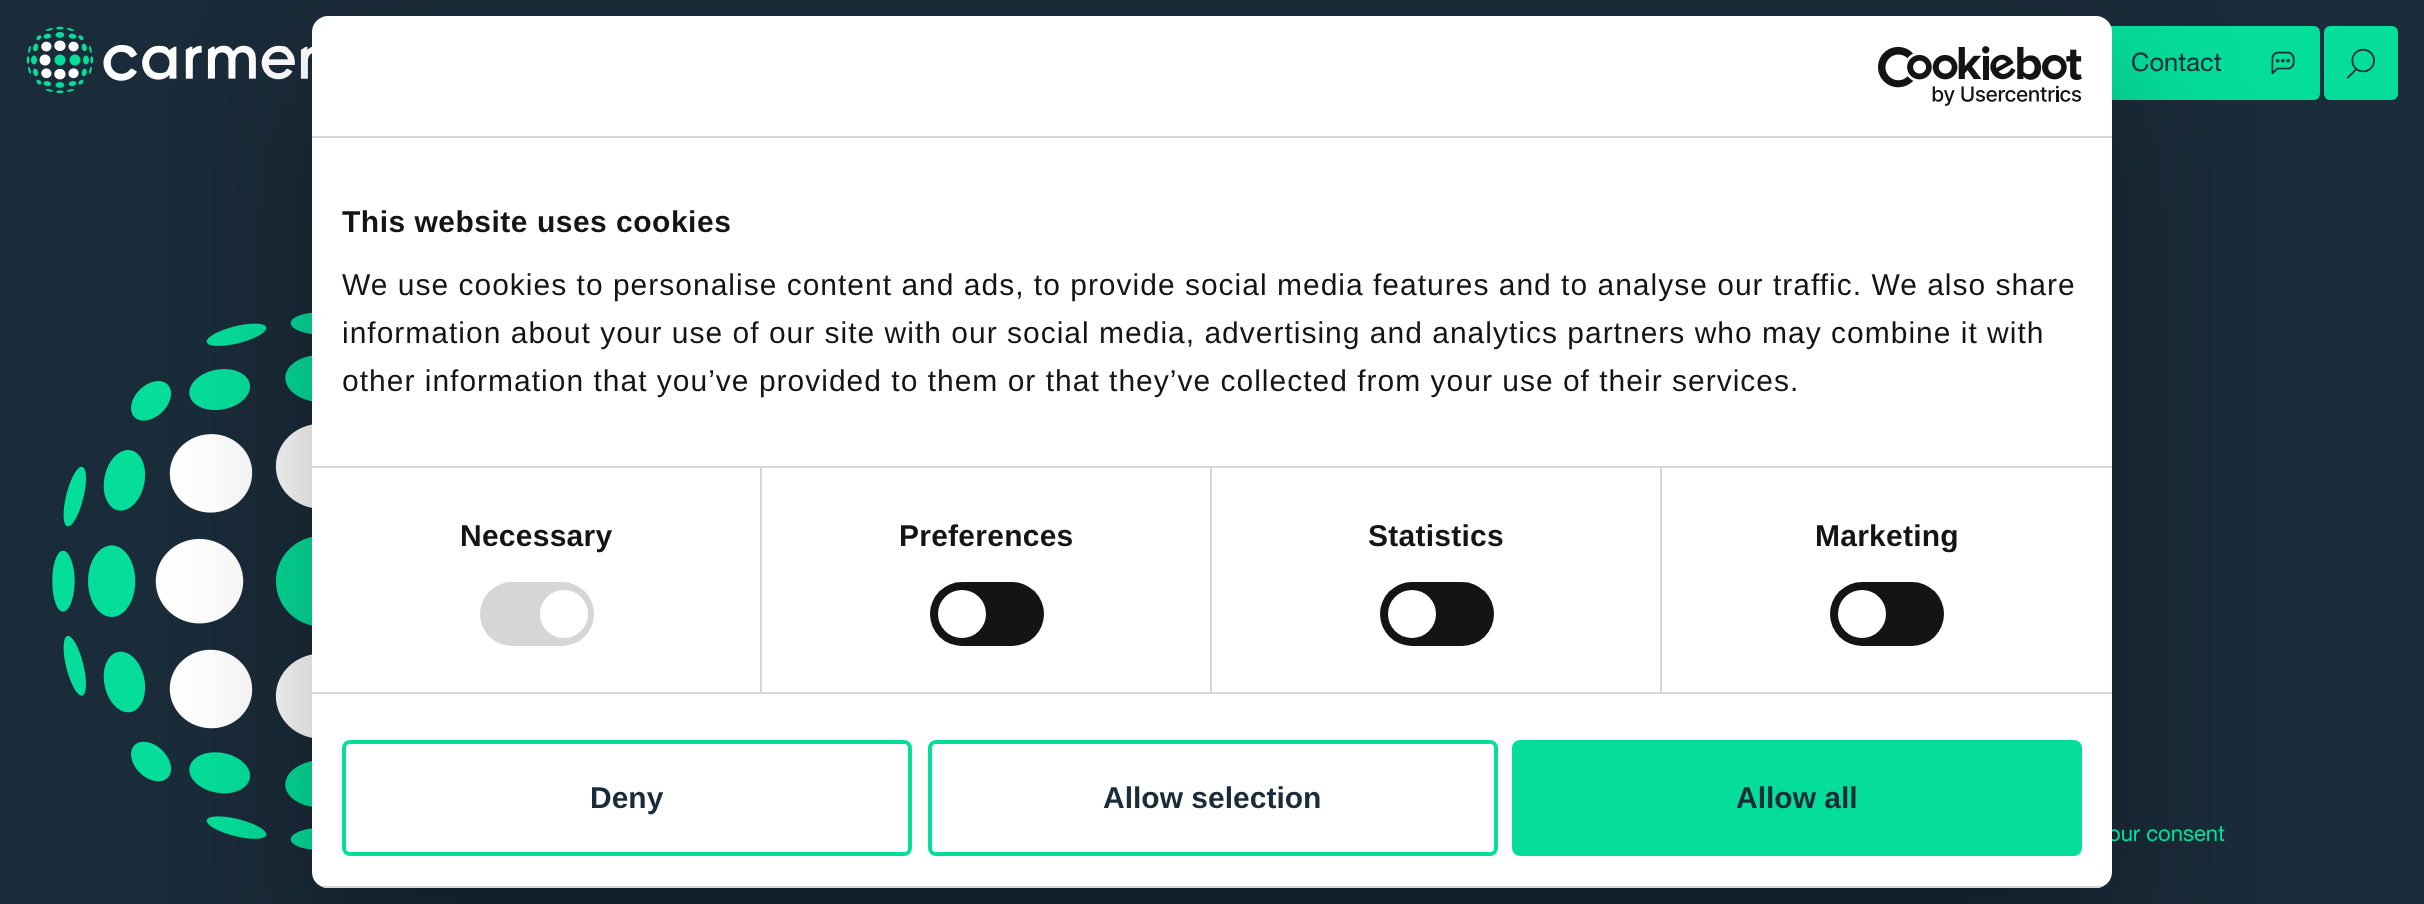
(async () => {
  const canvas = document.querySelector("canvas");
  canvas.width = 2424;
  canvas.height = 904;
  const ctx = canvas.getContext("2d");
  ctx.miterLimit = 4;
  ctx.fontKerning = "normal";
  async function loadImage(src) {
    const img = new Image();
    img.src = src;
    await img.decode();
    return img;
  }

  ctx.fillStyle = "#1a2b39";
  ctx.fillRect(0, 0, 2424, 904);
  ctx.drawImage(await loadImage("img/1.png"), 26, 26, 286, 68);
  ctx.fillStyle = "#05de9a";
  ctx.beginPath();
  ctx.roundRect(2106, 26, 214, 74, 6);
  ctx.fill();
  ctx.drawImage(await loadImage("img/2.png"), 2271, 51, 24, 24);
  ctx.beginPath();
  ctx.roundRect(2324, 26, 74, 74, 6);
  ctx.fill();
  ctx.drawImage(await loadImage("img/3.png"), 2346, 48, 29, 31);
  ctx.drawImage(await loadImage("img/5.png"), 52, 312, 260, 538);
  ctx.fillStyle = "rgba(0, 0, 0, 0.3)";
  ctx.filter = "blur(68px)";
  ctx.beginPath();
  ctx.roundRect(312, 80, 1800, 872, 16);
  ctx.fill();
  ctx.filter = "none";
  ctx.font = "25.5px Helvetica Neue";
  ctx.fillStyle = "#1a2b39";
  ctx.fillText("Contact", 2131, 71);
  ctx.font = "22px Helvetica Neue";
  ctx.fillStyle = "#05de9a";
  ctx.fillText("our consent", 2108, 841);
  ctx.fillStyle = "#ffffff";
  ctx.beginPath();
  ctx.roundRect(312, 16, 1800, 872, 16);
  ctx.fill();
  ctx.fillStyle = "#05de9a";
  ctx.beginPath();
  ctx.roundRect(1514, 742, 566, 112, 6);
  ctx.fill();
  ctx.strokeStyle = "#05de9a";
  ctx.lineWidth = 4;
  ctx.stroke();
  ctx.font = "bold 30px Liberation Sans";
  ctx.fillStyle = "#1a2b39";
  ctx.fillText("Allow all", 1736, 808);
  ctx.beginPath();
  ctx.roundRect(930, 742, 566, 112, 6);
  ctx.stroke();
  ctx.fillText("Allow selection", 1103, 808);
  ctx.beginPath();
  ctx.roundRect(344, 742, 566, 112, 6);
  ctx.stroke();
  ctx.fillText("Deny", 590, 808);
  ctx.save();
  ctx.beginPath();
  ctx.roundRect(312, 16, 1800, 872, 16);
  ctx.clip();
  ctx.fillStyle = "#d6d6d6";
  ctx.fillRect(312, 886, 1800, 2);
  ctx.restore();
  ctx.fillStyle = "#141414";
  ctx.beginPath();
  ctx.roundRect(1830, 582, 114, 64, 32);
  ctx.fill();
  ctx.fillStyle = "#ffffff";
  ctx.beginPath();
  ctx.arc(1862, 614, 24, 0, Math.PI * 2);
  ctx.fill();
  ctx.fillStyle = "#141414";
  ctx.beginPath();
  ctx.roundRect(1380, 582, 114, 64, 32);
  ctx.fill();
  ctx.fillStyle = "#ffffff";
  ctx.beginPath();
  ctx.arc(1412, 614, 24, 0, Math.PI * 2);
  ctx.fill();
  ctx.fillStyle = "#141414";
  ctx.beginPath();
  ctx.roundRect(930, 582, 114, 64, 32);
  ctx.fill();
  ctx.fillStyle = "#ffffff";
  ctx.beginPath();
  ctx.arc(962, 614, 24, 0, Math.PI * 2);
  ctx.fill();
  ctx.fillStyle = "#d6d6d6";
  ctx.beginPath();
  ctx.roundRect(480, 582, 114, 64, 32);
  ctx.fill();
  ctx.fillStyle = "#ffffff";
  ctx.beginPath();
  ctx.arc(564, 614, 24, 0, Math.PI * 2);
  ctx.fill();
  ctx.letterSpacing = "1px";
  ctx.font = "30px Liberation Sans";
  ctx.fillStyle = "#141414";
  for (const [text, x, y] of [
    ["other information that you’ve provided to them or that they’ve collected from your use of their services.", 342, 391],
    ["information about your use of our site with our social media, advertising and analytics partners who may combine it with", 342, 343],
    ["We use cookies to personalise content and ads, to provide social media features and to analyse our traffic. We also share", 342, 295],
  ]) {
    ctx.fillText(text, x, y);
  }
  ctx.letterSpacing = "0.5px";
  ctx.font = "bold 30px Liberation Sans";
  ctx.fillText("This website uses cookies", 342, 232);
  ctx.fillStyle = "#d6d6d6";
  ctx.fillRect(312, 466, 1800, 2);
  ctx.letterSpacing = "0.25px";
  ctx.fillStyle = "#141414";
  ctx.fillText("Marketing", 1815, 546);
  ctx.fillText("Statistics", 1368, 546);
  ctx.fillStyle = "#d6d6d6";
  ctx.fillRect(1660, 468, 2, 224);
  ctx.fillStyle = "#141414";
  ctx.fillText("Preferences", 899, 546);
  ctx.fillStyle = "#d6d6d6";
  ctx.fillRect(1210, 468, 2, 224);
  ctx.fillStyle = "#141414";
  ctx.fillText("Necessary", 460, 546);
  ctx.fillStyle = "#d6d6d6";
  ctx.fillRect(760, 468, 2, 224);
  ctx.fillRect(312, 692, 1800, 2);
  ctx.drawImage(await loadImage("img/4.png"), 1878, 46, 204, 60);
  ctx.fillRect(312, 136, 1800, 2);
})();
